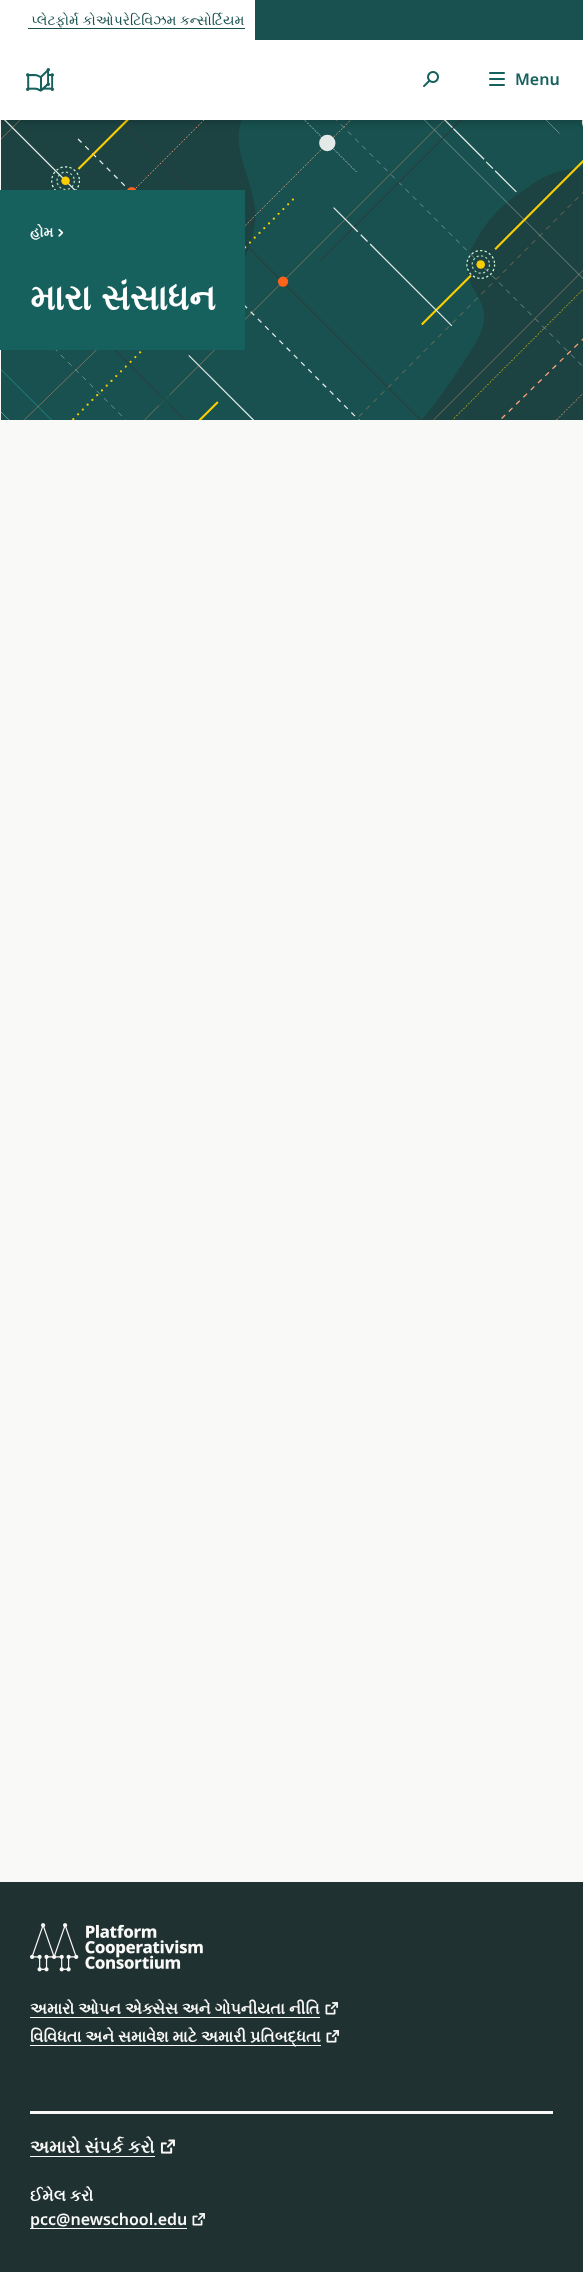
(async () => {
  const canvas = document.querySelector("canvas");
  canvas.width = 583;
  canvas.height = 2272;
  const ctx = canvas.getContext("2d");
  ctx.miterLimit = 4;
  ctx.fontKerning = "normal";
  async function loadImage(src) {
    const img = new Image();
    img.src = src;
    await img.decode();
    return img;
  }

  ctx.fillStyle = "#f9f9f7";
  ctx.fillRect(0, 0, 583, 2272);
  ctx.drawImage(await loadImage("img/4.png"), 1, 120, 582, 300);
  ctx.fillStyle = "rgba(0, 0, 0, 0.16)";
  ctx.filter = "blur(3px)";
  ctx.beginPath();
  ctx.rect(0, 3, 583, 120);
  ctx.fill();
  ctx.filter = "none";
  for (const [x, y, w, h, color] of [
    [0, 40, 583, 80, "#ffffff"],
    [255, 0, 328, 40, "#18514f"],
    [0, 0, 255, 40, "#ffffff"],
    [28, 28, 217, 1, "#18514f"],
  ]) {
    ctx.fillStyle = color;
    ctx.fillRect(x, y, w, h);
  }
  ctx.drawImage(await loadImage("img/1.png"), 26, 68, 28, 24);
  ctx.drawImage(await loadImage("img/2.png"), 423, 71, 16, 17);
  ctx.drawImage(await loadImage("img/3.png"), 489, 72, 16, 14);
  ctx.strokeStyle = "#16605d";
  ctx.lineWidth = 30;
  ctx.strokeRect(15, 205, 215, 130);
  ctx.fillStyle = "#16605d";
  ctx.fillRect(30, 220, 185, 100);
  ctx.drawImage(await loadImage("img/5.png"), 58, 228, 6, 9);
  ctx.fillStyle = "#203131";
  ctx.fillRect(0, 1882, 583, 390);
  ctx.drawImage(await loadImage("img/6.png"), 30, 1923, 173, 49);
  ctx.fillStyle = "#f9f9f7";
  ctx.fillRect(30, 2017, 290, 1);
  ctx.drawImage(await loadImage("img/7.png"), 325, 2002, 13, 13);
  ctx.fillRect(30, 2045, 291, 1);
  ctx.drawImage(await loadImage("img/7.png"), 326, 2030, 13, 13);
  ctx.fillRect(30, 2111, 523, 3);
  ctx.fillRect(30, 2156, 125, 1);
  ctx.drawImage(await loadImage("img/8.png"), 160, 2139, 15, 15);
  ctx.fillRect(30, 2228, 157, 1);
  ctx.drawImage(await loadImage("img/7.png"), 192, 2213, 13, 13);
  ctx.font = "14px FreeSerif";
  ctx.fillStyle = "#18514f";
  ctx.fillText("પ્લેટફોર્મ કોઓપરેટિવિઝમ કન્સોર્ટિયમ", 31, 25);
  ctx.font = "600 16px Noto Sans";
  ctx.fillStyle = "#16605d";
  ctx.fillText("Menu", 515, 85);
  ctx.font = "bold 14px FreeSerif";
  ctx.fillStyle = "#f9f9f7";
  ctx.fillText("હોમ", 30, 237);
  ctx.letterSpacing = "-0.25px";
  ctx.wordSpacing = "1px";
  ctx.font = "bold 36px FreeSerif";
  ctx.fillStyle = "#ffffff";
  ctx.fillText("મારા સંસાધન", 30, 310);
  ctx.letterSpacing = "0px";
  ctx.wordSpacing = "0px";
  ctx.font = "bold 16px FreeSerif";
  ctx.fillStyle = "#f9f9f7";
  ctx.fillText("અમારો ઓપન એક્સેસ અને ગોપનીયતા નીતિ", 30, 2014);
  ctx.fillText("વિવિધતા અને સમાવેશ માટે અમારી પ્રતિબદ્ધતા", 30, 2042);
  ctx.font = "bold 18px FreeSerif";
  ctx.fillText("અમારો સંપર્ક કરો", 30, 2153);
  ctx.font = "bold 16px FreeSerif";
  ctx.fillStyle = "#ffffff";
  ctx.fillText("ઈમેલ કરો", 30, 2201);
  ctx.font = "600 16px Noto Sans";
  ctx.fillStyle = "#f9f9f7";
  ctx.fillText("pcc@newschool.edu", 30, 2225);
})();
